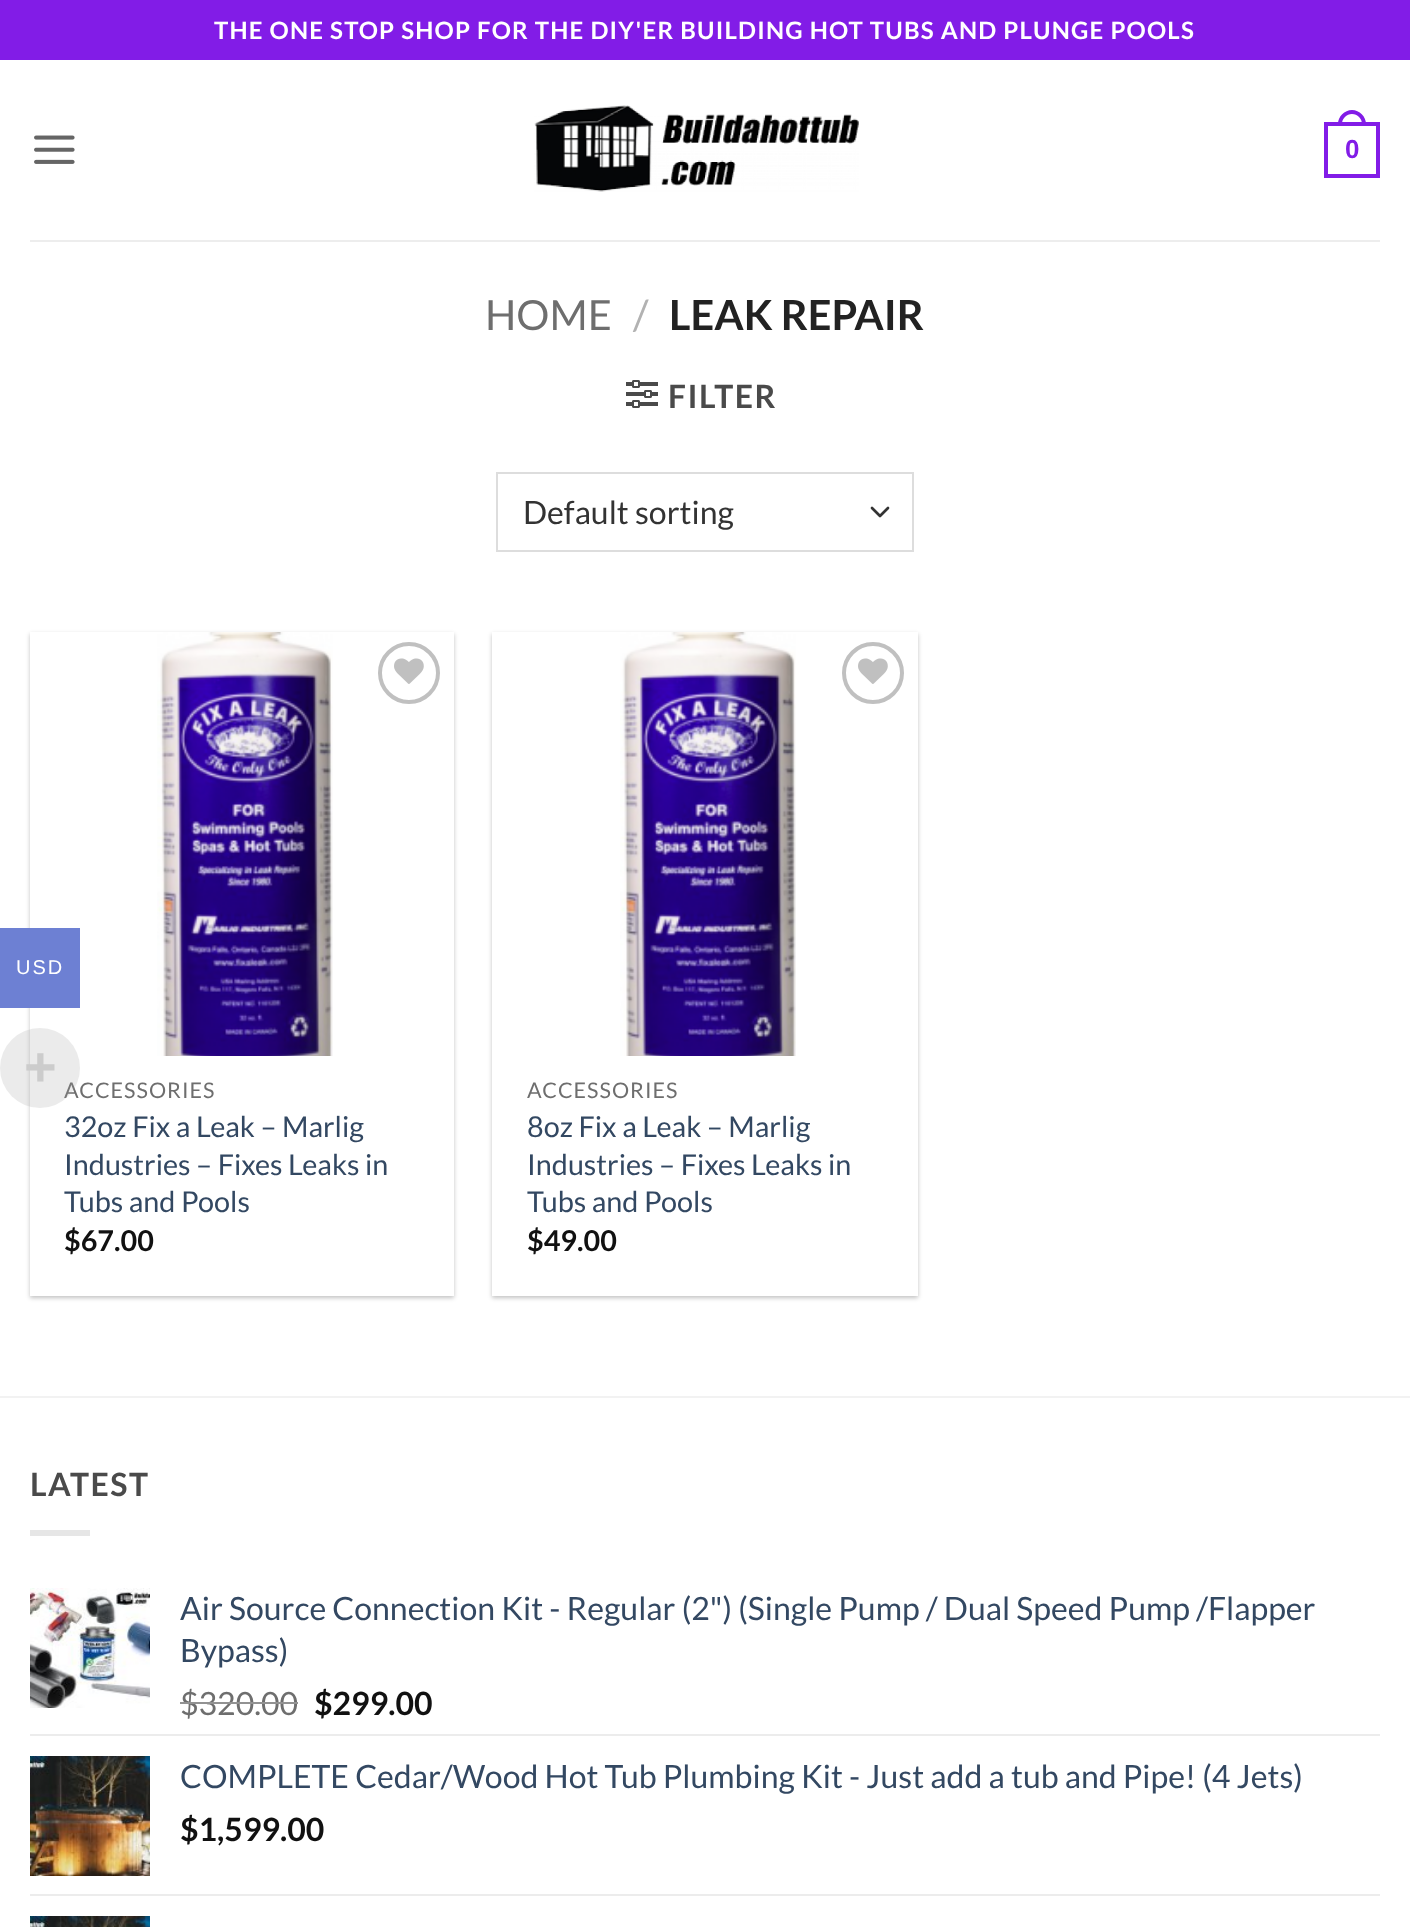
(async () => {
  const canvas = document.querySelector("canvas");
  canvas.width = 1410;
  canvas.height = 1927;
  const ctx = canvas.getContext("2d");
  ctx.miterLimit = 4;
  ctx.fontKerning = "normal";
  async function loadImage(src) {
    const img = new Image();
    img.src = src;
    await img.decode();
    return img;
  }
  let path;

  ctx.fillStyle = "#ffffff";
  ctx.fillRect(0, 0, 1410, 1927);
  ctx.fillStyle = "#821ce7";
  ctx.fillRect(0, 0, 1410, 60);
  ctx.drawImage(await loadImage("img/1.png"), 34, 135, 41, 29);
  ctx.drawImage(await loadImage("img/2.png"), 534, 105, 325, 87);
  ctx.strokeStyle = "#821ce7";
  ctx.lineWidth = 4;
  ctx.strokeRect(1326, 124, 52, 52);
  path = new Path2D("M1352 110C1359.5 110 1366 116.5 1366 124V126H1338V124C1338 116.5 1344.5 110 1352 110ZM1352 114C1357.5 114 1362 118.5 1362 124V126H1342V124C1342 118.5 1346.5 114 1352 114Z");
  ctx.fill(path, "evenodd");
  ctx.fillStyle = "#ededed";
  ctx.fillRect(30, 240, 1350, 2);
  ctx.drawImage(await loadImage("img/3.png"), 626, 380, 32, 28);
  path = new Path2D("M872 508L880 516L888 508");
  ctx.strokeStyle = "#333333";
  ctx.lineWidth = 2.7;
  ctx.lineCap = "round";
  ctx.lineJoin = "round";
  ctx.stroke(path);
  ctx.strokeStyle = "#dddddd";
  ctx.lineWidth = 2;
  ctx.lineJoin = "miter";
  ctx.strokeRect(497, 473, 416, 78);
  ctx.save();
  path = new Path2D("M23 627H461V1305H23ZM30 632H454V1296H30Z");
  ctx.clip(path, "evenodd");
  ctx.fillStyle = "rgba(0, 0, 0, 0.24)";
  ctx.filter = "blur(2px)";
  ctx.beginPath();
  ctx.rect(30, 634, 424, 664);
  ctx.fill();
  ctx.filter = "none";
  ctx.restore();
  ctx.drawImage(await loadImage("img/4.png"), 157, 632, 176, 424);
  ctx.beginPath();
  ctx.arc(409, 673, 29, 0, Math.PI * 2);
  ctx.strokeStyle = "#c0c0c0";
  ctx.lineWidth = 4;
  ctx.stroke();
  ctx.drawImage(await loadImage("img/5.png"), 394, 658, 30, 26);
  ctx.save();
  path = new Path2D("M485 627H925V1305H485ZM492 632H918V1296H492Z");
  ctx.clip(path, "evenodd");
  ctx.fillStyle = "rgba(0, 0, 0, 0.24)";
  ctx.filter = "blur(2px)";
  ctx.beginPath();
  ctx.rect(492, 634, 426, 664);
  ctx.fill();
  ctx.filter = "none";
  ctx.restore();
  ctx.drawImage(await loadImage("img/6.png"), 620, 632, 176, 424);
  ctx.beginPath();
  ctx.arc(873, 673, 29, 0, Math.PI * 2);
  ctx.stroke();
  ctx.drawImage(await loadImage("img/5.png"), 858, 658, 30, 26);
  ctx.fillStyle = "#f2f2f2";
  ctx.fillRect(0, 1396, 1410, 2);
  ctx.fillStyle = "#e6e6e6";
  ctx.fillRect(30, 1530, 60, 6);
  ctx.drawImage(await loadImage("img/7.png"), 30, 1588, 120, 120);
  ctx.fillStyle = "#ececec";
  ctx.fillRect(30, 1734, 1350, 2);
  ctx.drawImage(await loadImage("img/8.png"), 30, 1756, 120, 120);
  ctx.fillRect(30, 1894, 1350, 2);
  ctx.drawImage(await loadImage("img/9.png"), 30, 1916, 120, 11);
  ctx.fillStyle = "#6d80d3";
  ctx.fillRect(0, 928, 80, 80);
  ctx.letterSpacing = "1.2px";
  ctx.font = "bold 24px Lato";
  ctx.fillStyle = "#ffffff";
  ctx.fillText("THE ONE STOP SHOP FOR THE DIY'ER BUILDING HOT TUBS AND PLUNGE POOLS", 214, 39);
  ctx.letterSpacing = "0px";
  ctx.font = "bold 26px Liberation Sans";
  ctx.fillStyle = "#821ce7";
  ctx.fillText("0", 1345, 158);
  ctx.font = "41.5px Lato";
  ctx.fillStyle = "#6e6e6e";
  ctx.fillText("HOME", 485, 330);
  ctx.fillStyle = "#b2b2b2";
  ctx.fillText("/", 633, 330);
  ctx.font = "bold 41.5px Lato";
  ctx.fillStyle = "#222222";
  ctx.fillText("LEAK REPAIR", 669, 330);
  ctx.letterSpacing = "1.5px";
  ctx.font = "bold 32px Lato";
  ctx.fillStyle = "#4a4a4a";
  ctx.fillText("FILTER", 668, 408);
  ctx.letterSpacing = "0px";
  ctx.font = "32px Lato";
  ctx.fillStyle = "#333333";
  ctx.fillText("Default sorting", 523, 524);
  ctx.letterSpacing = "1px";
  ctx.font = "21.5px Lato";
  ctx.fillStyle = "#6e6e6e";
  ctx.fillText("ACCESSORIES", 64, 1098);
  ctx.letterSpacing = "0px";
  ctx.font = "28.75px Lato";
  ctx.fillStyle = "#334862";
  for (const [text, x, y] of [
    ["32oz Fix a Leak – Marlig", 64, 1137],
    ["Industries – Fixes Leaks in", 64, 1175],
    ["Tubs and Pools", 64, 1212],
  ]) {
    ctx.fillText(text, x, y);
  }
  ctx.font = "bold 28.75px Lato";
  ctx.fillStyle = "#111111";
  ctx.fillText("$67.00", 64, 1251);
  ctx.letterSpacing = "1px";
  ctx.font = "21.5px Lato";
  ctx.fillStyle = "#6e6e6e";
  ctx.fillText("ACCESSORIES", 527, 1098);
  ctx.letterSpacing = "0px";
  ctx.font = "28.75px Lato";
  ctx.fillStyle = "#334862";
  for (const [text, x, y] of [
    ["8oz Fix a Leak – Marlig", 527, 1137],
    ["Industries – Fixes Leaks in", 527, 1175],
    ["Tubs and Pools", 527, 1212],
  ]) {
    ctx.fillText(text, x, y);
  }
  ctx.font = "bold 28.75px Lato";
  ctx.fillStyle = "#111111";
  ctx.fillText("$49.00", 527, 1251);
  ctx.letterSpacing = "1.5px";
  ctx.font = "bold 32px Lato";
  ctx.fillStyle = "#4a4a4a";
  ctx.fillText("LATEST", 30, 1496);
  ctx.letterSpacing = "0px";
  ctx.font = "32px Lato";
  ctx.fillStyle = "#334862";
  ctx.fillText("Air Source Connection Kit - Regular (2\") (Single Pump / Dual Speed Pump /Flapper", 180, 1620);
  ctx.fillText("Bypass)", 180, 1662);
  ctx.fillStyle = "#6e6e6e";
  ctx.fillText("$320.00", 180, 1715);
  ctx.fillStyle = "#929292";
  ctx.fillRect(180, 1702, 118, 2);
  ctx.font = "bold 32px Lato";
  ctx.fillStyle = "#111111";
  ctx.fillText("$299.00", 314, 1715);
  ctx.font = "32px Lato";
  ctx.fillStyle = "#334862";
  ctx.fillText("COMPLETE Cedar/Wood Hot Tub Plumbing Kit - Just add a tub and Pipe! (4 Jets)", 180, 1788);
  ctx.font = "bold 32px Lato";
  ctx.fillStyle = "#111111";
  ctx.fillText("$1,599.00", 180, 1841);
  ctx.letterSpacing = "2px";
  ctx.font = "20px Liberation Sans";
  ctx.fillStyle = "#ffffff";
  ctx.fillText("USD", 16, 974);
  ctx.fillStyle = "rgba(153, 153, 153, 0.2)";
  ctx.beginPath();
  ctx.arc(40, 1068, 40, 0, Math.PI * 2);
  ctx.fill();
  ctx.letterSpacing = "0px";
  ctx.font = "bold 56px Liberation Sans";
  ctx.fillStyle = "#cccccc";
  ctx.fillText("+", 24, 1086);
})();
